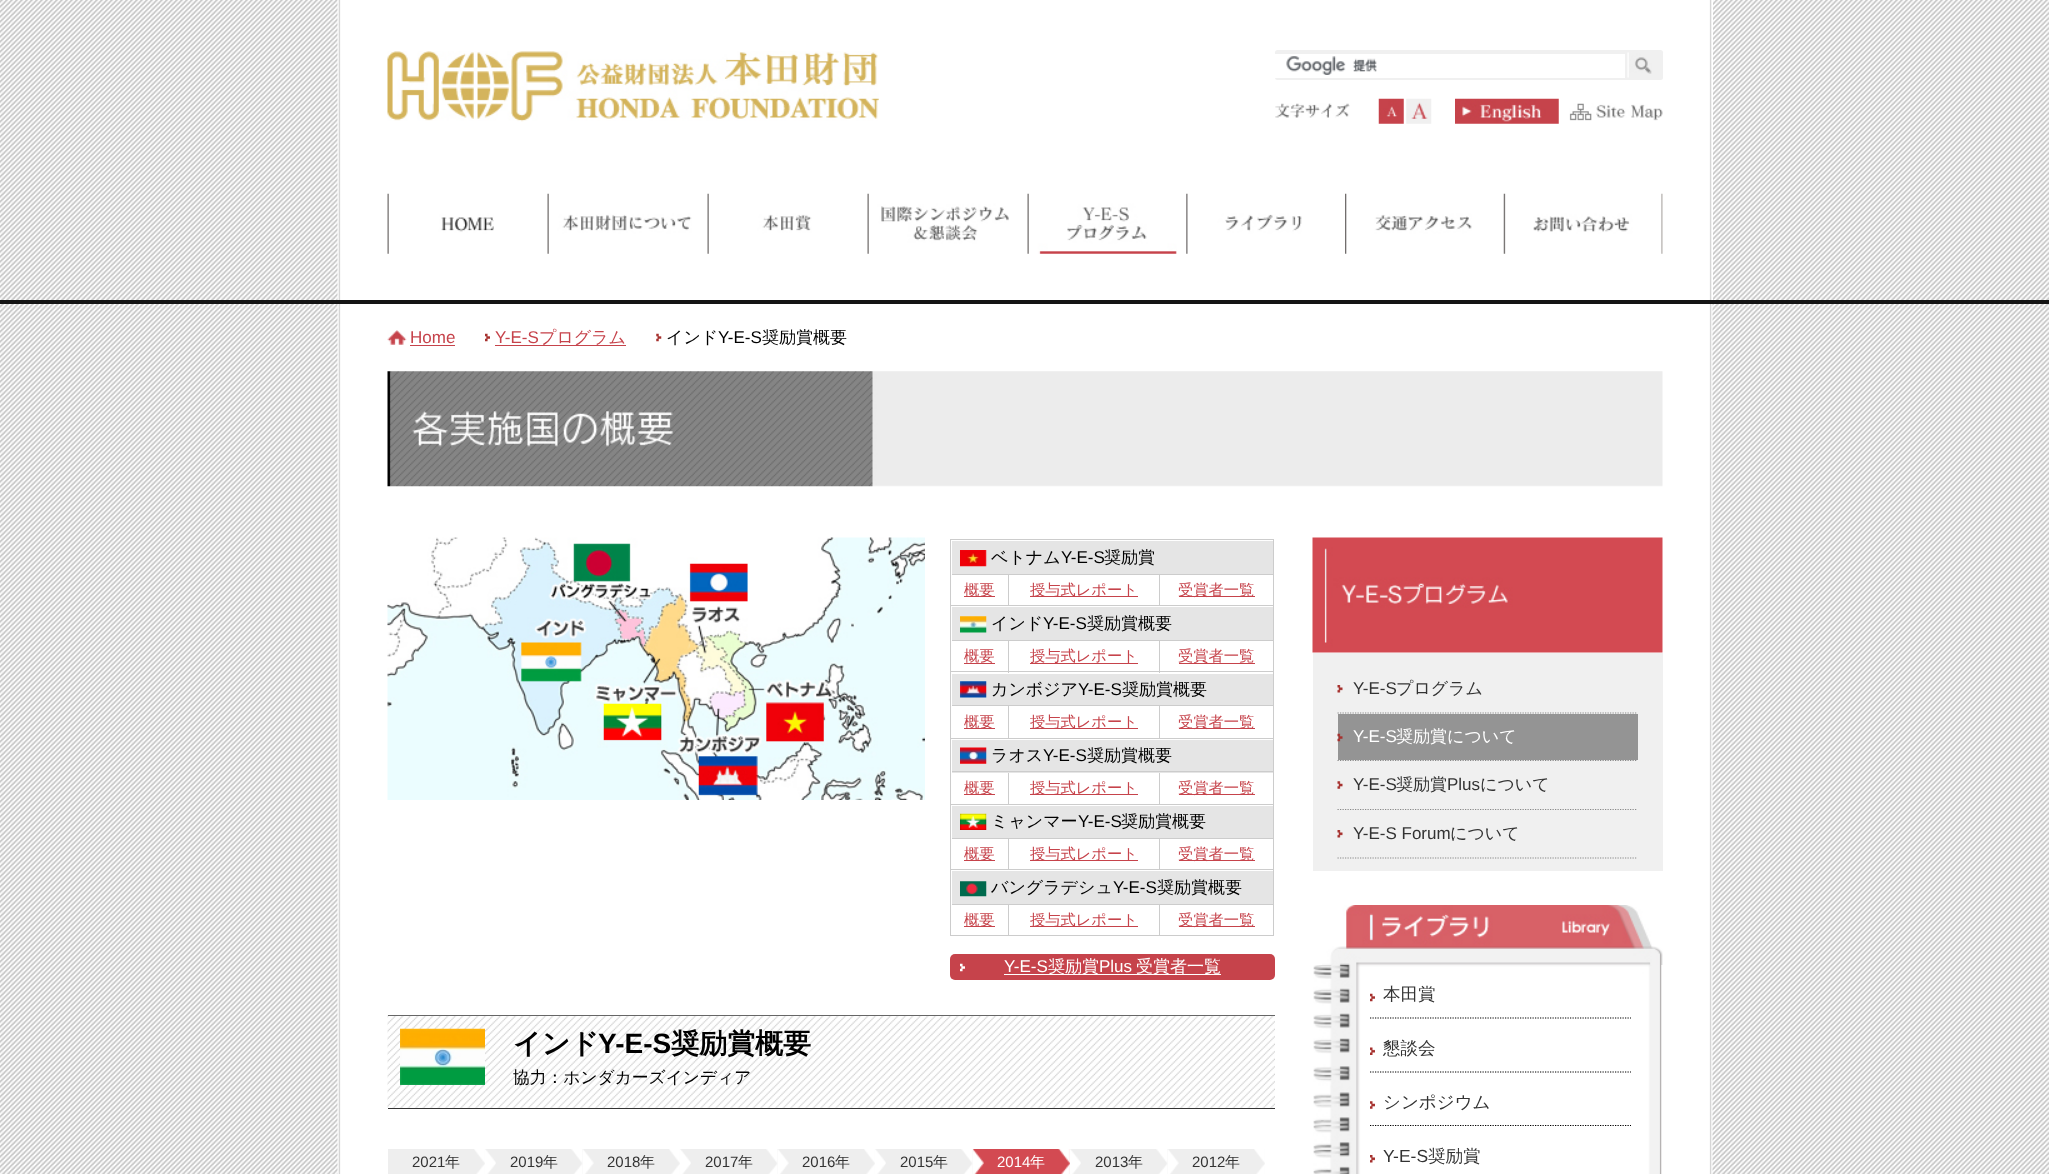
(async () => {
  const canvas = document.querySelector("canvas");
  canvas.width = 2049;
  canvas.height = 1174;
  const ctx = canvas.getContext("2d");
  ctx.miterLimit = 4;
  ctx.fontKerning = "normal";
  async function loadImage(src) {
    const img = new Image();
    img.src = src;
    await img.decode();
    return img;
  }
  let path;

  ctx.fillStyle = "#ffffff";
  ctx.fillRect(0, 0, 2049, 1174);
  ctx.drawImage(await loadImage("img/1.png"), 0, 0, 2049, 1174);
  ctx.fillStyle = "#151515";
  ctx.fillRect(0, 300, 2049, 4);
  ctx.fillStyle = "#ffffff";
  ctx.fillRect(1712, 0, 1, 300);
  ctx.drawImage(await loadImage("img/2.png"), 337, 0, 1375, 300);
  ctx.drawImage(await loadImage("img/3.png"), 387, 51, 492, 71);
  ctx.fillStyle = "#f0f0f0";
  ctx.beginPath();
  ctx.roundRect(1275, 50, 388, 30, 2.5);
  ctx.fill();
  ctx.fillStyle = "#ffffff";
  ctx.fillRect(1275, 54, 350, 24);
  ctx.drawImage(await loadImage("img/4.png"), 1286, 56, 91, 19);
  ctx.drawImage(await loadImage("img/5.png"), 1627, 52, 25, 26);
  ctx.drawImage(await loadImage("img/6.png"), 1275, 103, 75, 15);
  ctx.drawImage(await loadImage("img/7.png"), 1378, 98, 26, 26);
  ctx.drawImage(await loadImage("img/8.png"), 1406, 98, 26, 26);
  ctx.drawImage(await loadImage("img/9.png"), 1455, 98, 104, 26);
  ctx.drawImage(await loadImage("img/10.png"), 1569, 103, 94, 18);
  ctx.drawImage(await loadImage("img/11.png"), 387, 193, 107, 61);
  ctx.drawImage(await loadImage("img/12.png"), 547, 193, 145, 61);
  ctx.drawImage(await loadImage("img/13.png"), 707, 193, 105, 61);
  ctx.drawImage(await loadImage("img/14.png"), 867, 193, 142, 61);
  ctx.drawImage(await loadImage("img/15.png"), 1027, 193, 150, 61);
  ctx.drawImage(await loadImage("img/16.png"), 1186, 193, 116, 61);
  ctx.drawImage(await loadImage("img/17.png"), 1345, 193, 127, 61);
  ctx.drawImage(await loadImage("img/18.png"), 1503, 193, 160, 61);
  ctx.drawImage(await loadImage("img/19.png"), 337, 304, 1376, 870);
  ctx.drawImage(await loadImage("img/20.png"), 387, 330, 20, 15);
  ctx.fillStyle = "#c6434b";
  ctx.fillRect(410, 345, 45, 1);
  ctx.drawImage(await loadImage("img/21.png"), 485, 333, 5, 9);
  ctx.fillRect(495, 345, 131, 1);
  ctx.drawImage(await loadImage("img/22.png"), 656, 333, 6, 9);
  ctx.drawImage(await loadImage("img/23.png"), 387, 371, 1276, 116);
  ctx.drawImage(await loadImage("img/24.png"), 387, 537, 538, 263);
  for (const [x, y, w, h, color] of [
    [950, 539, 325, 1, "#cccccc"],
    [1274, 539, 1, 1, "#ffffff"],
    [950, 539, 1, 397, "#cccccc"],
    [952, 541, 321, 33, "#e5e5e5"],
    [1273, 540, 1, 396, "#cccccc"],
    [951, 574, 323, 1, "#cccccc"],
    [951, 574, 1, 1, "#ffffff"],
  ]) {
    ctx.fillStyle = color;
    ctx.fillRect(x, y, w, h);
  }
  ctx.drawImage(await loadImage("img/25.png"), 960, 550, 27, 17);
  for (const [x, y, w, h, color] of [
    [1008, 575, 1, 31, "#cccccc"],
    [951, 605, 58, 1, "#cccccc"],
    [964, 596, 31, 1, "#c6434b"],
    [1159, 575, 1, 31, "#cccccc"],
    [1009, 605, 265, 1, "#cccccc"],
    [1030, 596, 108, 1, "#c6434b"],
    [1179, 596, 76, 1, "#c6434b"],
    [952, 607, 321, 33, "#e5e5e5"],
    [951, 640, 323, 1, "#cccccc"],
    [951, 640, 1, 1, "#ffffff"],
  ]) {
    ctx.fillStyle = color;
    ctx.fillRect(x, y, w, h);
  }
  ctx.drawImage(await loadImage("img/26.png"), 960, 616, 27, 17);
  for (const [x, y, w, h, color] of [
    [1008, 641, 1, 32, "#cccccc"],
    [951, 671, 58, 1, "#cccccc"],
    [964, 663, 31, 1, "#c6434b"],
    [1159, 641, 1, 32, "#cccccc"],
    [1009, 671, 265, 1, "#cccccc"],
    [1030, 663, 108, 1, "#c6434b"],
    [1179, 663, 76, 1, "#c6434b"],
    [952, 674, 321, 31, "#e5e5e5"],
    [951, 705, 323, 1, "#cccccc"],
    [951, 705, 1, 1, "#ffffff"],
  ]) {
    ctx.fillStyle = color;
    ctx.fillRect(x, y, w, h);
  }
  ctx.drawImage(await loadImage("img/27.png"), 960, 681, 27, 17);
  for (const [x, y, w, h, color] of [
    [1008, 706, 1, 33, "#cccccc"],
    [951, 738, 58, 1, "#cccccc"],
    [964, 728, 31, 1, "#c6434b"],
    [1159, 706, 1, 33, "#cccccc"],
    [1009, 738, 265, 1, "#cccccc"],
    [1030, 728, 108, 1, "#c6434b"],
    [1179, 728, 76, 1, "#c6434b"],
    [952, 740, 321, 33, "#e5e5e5"],
    [951, 771, 323, 1, "#cccccc"],
    [951, 771, 1, 2, "#ffffff"],
  ]) {
    ctx.fillStyle = color;
    ctx.fillRect(x, y, w, h);
  }
  ctx.drawImage(await loadImage("img/28.png"), 960, 747, 27, 17);
  for (const [x, y, w, h, color] of [
    [1008, 773, 1, 32, "#cccccc"],
    [951, 804, 58, 1, "#cccccc"],
    [964, 794, 31, 1, "#c6434b"],
    [1159, 773, 1, 32, "#cccccc"],
    [1009, 804, 265, 1, "#cccccc"],
    [1030, 794, 108, 1, "#c6434b"],
    [1179, 794, 76, 1, "#c6434b"],
    [952, 806, 321, 32, "#e5e5e5"],
    [951, 838, 323, 1, "#cccccc"],
    [951, 838, 1, 1, "#ffffff"],
  ]) {
    ctx.fillStyle = color;
    ctx.fillRect(x, y, w, h);
  }
  ctx.drawImage(await loadImage("img/29.png"), 960, 813, 27, 17);
  for (const [x, y, w, h, color] of [
    [1008, 839, 1, 31, "#cccccc"],
    [951, 869, 58, 1, "#cccccc"],
    [964, 860, 31, 1, "#c6434b"],
    [1159, 839, 1, 31, "#cccccc"],
    [1009, 869, 265, 1, "#cccccc"],
    [1030, 860, 108, 1, "#c6434b"],
    [1179, 860, 76, 1, "#c6434b"],
    [952, 871, 321, 33, "#e5e5e5"],
    [951, 904, 323, 1, "#cccccc"],
    [951, 904, 1, 1, "#ffffff"],
  ]) {
    ctx.fillStyle = color;
    ctx.fillRect(x, y, w, h);
  }
  ctx.drawImage(await loadImage("img/30.png"), 960, 881, 27, 16);
  for (const [x, y, w, h, color] of [
    [1008, 905, 1, 31, "#cccccc"],
    [951, 935, 58, 1, "#cccccc"],
    [964, 926, 31, 1, "#c6434b"],
    [1159, 905, 1, 31, "#cccccc"],
    [1009, 935, 265, 1, "#cccccc"],
    [1030, 926, 108, 1, "#c6434b"],
    [1179, 926, 76, 1, "#c6434b"],
  ]) {
    ctx.fillStyle = color;
    ctx.fillRect(x, y, w, h);
  }
  ctx.beginPath();
  ctx.roundRect(950, 954, 325, 26, 5);
  ctx.fill();
  ctx.drawImage(await loadImage("img/31.png"), 960, 963, 5, 9);
  ctx.fillStyle = "#ffffff";
  ctx.fillRect(1004, 974, 217, 1);
  ctx.drawImage(await loadImage("img/32.png"), 387, 1015, 888, 94);
  ctx.fillStyle = "#666666";
  ctx.fillRect(388, 1015, 887, 1);
  ctx.fillStyle = "#333333";
  ctx.fillRect(388, 1108, 887, 1);
  ctx.drawImage(await loadImage("img/33.png"), 400, 1028, 85, 57);
  ctx.fillStyle = "#eeeeee";
  ctx.fillRect(388, 1149, 585, 25);
  ctx.drawImage(await loadImage("img/34.png"), 474, 1149, 11, 25);
  ctx.drawImage(await loadImage("img/35.png"), 485, 1149, 11, 25);
  ctx.drawImage(await loadImage("img/36.png"), 571, 1149, 12, 25);
  ctx.drawImage(await loadImage("img/37.png"), 582, 1149, 12, 25);
  ctx.drawImage(await loadImage("img/38.png"), 669, 1149, 11, 25);
  ctx.drawImage(await loadImage("img/35.png"), 680, 1149, 11, 25);
  ctx.drawImage(await loadImage("img/36.png"), 766, 1149, 12, 25);
  ctx.drawImage(await loadImage("img/37.png"), 777, 1149, 12, 25);
  ctx.drawImage(await loadImage("img/38.png"), 864, 1149, 11, 25);
  ctx.drawImage(await loadImage("img/39.png"), 875, 1149, 11, 25);
  ctx.drawImage(await loadImage("img/36.png"), 961, 1149, 12, 25);
  ctx.fillStyle = "#d34a52";
  ctx.fillRect(973, 1149, 97, 25);
  ctx.drawImage(await loadImage("img/40.png"), 972, 1149, 12, 25);
  ctx.drawImage(await loadImage("img/41.png"), 1058, 1149, 12, 25);
  ctx.fillStyle = "#eeeeee";
  ctx.fillRect(1070, 1149, 195, 25);
  ctx.drawImage(await loadImage("img/39.png"), 1070, 1149, 11, 25);
  ctx.drawImage(await loadImage("img/36.png"), 1156, 1149, 12, 25);
  ctx.drawImage(await loadImage("img/37.png"), 1167, 1149, 12, 25);
  ctx.drawImage(await loadImage("img/34.png"), 1254, 1149, 11, 25);
  ctx.drawImage(await loadImage("img/42.png"), 1312, 537, 351, 116);
  ctx.fillStyle = "#f0f0f0";
  ctx.fillRect(1313, 653, 350, 218);
  path = new Path2D("M1337.5 713H1637.5");
  ctx.strokeStyle = "#898989";
  ctx.lineWidth = 1.2;
  ctx.setLineDash([1.25, 1.25]);
  ctx.stroke(path);
  ctx.drawImage(await loadImage("img/43.png"), 1337, 685, 6, 8);
  path = new Path2D("M1337.5 760.5H1637.5");
  ctx.stroke(path);
  ctx.fillStyle = "#949494";
  ctx.fillRect(1338, 714, 300, 46);
  ctx.drawImage(await loadImage("img/44.png"), 1337, 733, 6, 9);
  path = new Path2D("M1337.5 809.5H1637.5");
  ctx.stroke(path);
  ctx.drawImage(await loadImage("img/45.png"), 1337, 781, 6, 8);
  path = new Path2D("M1337.5 858H1637.5");
  ctx.stroke(path);
  ctx.drawImage(await loadImage("img/43.png"), 1337, 830, 6, 8);
  ctx.drawImage(await loadImage("img/46.png"), 1322, 905, 341, 60);
  ctx.drawImage(await loadImage("img/47.png"), 1313, 965, 349, 209);
  ctx.drawImage(await loadImage("img/48.png"), 1370, 993, 5, 9);
  path = new Path2D("M1370 1018H1631");
  ctx.strokeStyle = "#000000";
  ctx.stroke(path);
  ctx.drawImage(await loadImage("img/49.png"), 1370, 1047, 5, 8);
  path = new Path2D("M1370 1072H1631");
  ctx.stroke(path);
  ctx.drawImage(await loadImage("img/50.png"), 1370, 1101, 5, 8);
  path = new Path2D("M1370 1125.5H1631");
  ctx.stroke(path);
  ctx.drawImage(await loadImage("img/51.png"), 1370, 1155, 5, 8);
  ctx.font = "17px Liberation Sans";
  ctx.fillStyle = "#c6434b";
  ctx.fillText("Home", 410, 343);
  ctx.fillText("Y-E-S", 495, 343);
  ctx.font = "500 17px WenQuanYi Zen Hei";
  ctx.fillText("プログラム", 539, 343);
  ctx.fillStyle = "#000000";
  ctx.fillText("インド", 666, 343);
  ctx.font = "17px Liberation Sans";
  ctx.fillText("Y-E-S", 718, 343);
  ctx.font = "500 17px WenQuanYi Zen Hei";
  ctx.fillText("奨励賞概要", 762, 343);
  ctx.fillText("ベトナム", 991, 563);
  ctx.font = "17px Liberation Sans";
  ctx.fillText("Y-E-S", 1061, 563);
  ctx.font = "500 17px WenQuanYi Zen Hei";
  ctx.fillText("奨励賞", 1104, 563);
  ctx.font = "500 15.25px WenQuanYi Zen Hei";
  ctx.fillStyle = "#c6434b";
  for (const [text, x, y] of [
    ["概要", 964, 595],
    ["授与式レポート", 1030, 595],
    ["受賞者一覧", 1178, 595],
  ]) {
    ctx.fillText(text, x, y);
  }
  ctx.font = "500 17px WenQuanYi Zen Hei";
  ctx.fillStyle = "#000000";
  ctx.fillText("インド", 991, 629);
  ctx.font = "17px Liberation Sans";
  ctx.fillText("Y-E-S", 1043, 629);
  ctx.font = "500 17px WenQuanYi Zen Hei";
  ctx.fillText("奨励賞概要", 1087, 629);
  ctx.font = "500 15.25px WenQuanYi Zen Hei";
  ctx.fillStyle = "#c6434b";
  for (const [text, x, y] of [
    ["概要", 964, 661],
    ["授与式レポート", 1030, 661],
    ["受賞者一覧", 1178, 661],
  ]) {
    ctx.fillText(text, x, y);
  }
  ctx.font = "500 17px WenQuanYi Zen Hei";
  ctx.fillStyle = "#000000";
  ctx.fillText("カンボジア", 991, 695);
  ctx.font = "17px Liberation Sans";
  ctx.fillText("Y-E-S", 1078, 695);
  ctx.font = "500 17px WenQuanYi Zen Hei";
  ctx.fillText("奨励賞概要", 1122, 695);
  ctx.font = "500 15.25px WenQuanYi Zen Hei";
  ctx.fillStyle = "#c6434b";
  for (const [text, x, y] of [
    ["概要", 964, 727],
    ["授与式レポート", 1030, 727],
    ["受賞者一覧", 1178, 727],
  ]) {
    ctx.fillText(text, x, y);
  }
  ctx.font = "500 17px WenQuanYi Zen Hei";
  ctx.fillStyle = "#000000";
  ctx.fillText("ラオス", 991, 761);
  ctx.font = "17px Liberation Sans";
  ctx.fillText("Y-E-S", 1043, 761);
  ctx.font = "500 17px WenQuanYi Zen Hei";
  ctx.fillText("奨励賞概要", 1087, 761);
  ctx.font = "500 15.25px WenQuanYi Zen Hei";
  ctx.fillStyle = "#c6434b";
  for (const [text, x, y] of [
    ["概要", 964, 793],
    ["授与式レポート", 1030, 793],
    ["受賞者一覧", 1178, 793],
  ]) {
    ctx.fillText(text, x, y);
  }
  ctx.font = "500 17px WenQuanYi Zen Hei";
  ctx.fillStyle = "#000000";
  ctx.fillText("ミャンマー", 991, 827);
  ctx.font = "17px Liberation Sans";
  ctx.fillText("Y-E-S", 1078, 827);
  ctx.font = "500 17px WenQuanYi Zen Hei";
  ctx.fillText("奨励賞概要", 1121, 827);
  ctx.font = "500 15.25px WenQuanYi Zen Hei";
  ctx.fillStyle = "#c6434b";
  for (const [text, x, y] of [
    ["概要", 964, 859],
    ["授与式レポート", 1030, 859],
    ["受賞者一覧", 1178, 859],
  ]) {
    ctx.fillText(text, x, y);
  }
  ctx.font = "500 17px WenQuanYi Zen Hei";
  ctx.fillStyle = "#000000";
  ctx.fillText("バングラデシュ", 991, 893);
  ctx.font = "17px Liberation Sans";
  ctx.fillText("Y-E-S", 1113, 893);
  ctx.font = "500 17px WenQuanYi Zen Hei";
  ctx.fillText("奨励賞概要", 1157, 893);
  ctx.font = "500 15.25px WenQuanYi Zen Hei";
  ctx.fillStyle = "#c6434b";
  for (const [text, x, y] of [
    ["概要", 964, 925],
    ["授与式レポート", 1030, 925],
    ["受賞者一覧", 1178, 925],
  ]) {
    ctx.fillText(text, x, y);
  }
  ctx.font = "17px Liberation Sans";
  ctx.fillStyle = "#ffffff";
  ctx.fillText("Y-E-S", 1004, 972);
  ctx.font = "500 17px WenQuanYi Zen Hei";
  ctx.fillText("奨励賞", 1048, 972);
  ctx.font = "17px Liberation Sans";
  ctx.fillText("Plus", 1099, 972);
  ctx.font = "500 17px WenQuanYi Zen Hei";
  ctx.fillText("受賞者一覧", 1136, 972);
  ctx.font = "bold 28px WenQuanYi Zen Hei";
  ctx.fillStyle = "#000000";
  ctx.fillText("インド", 513, 1053);
  ctx.font = "bold 28px Liberation Sans";
  ctx.fillText("Y-E-S", 598, 1053);
  ctx.font = "bold 28px WenQuanYi Zen Hei";
  ctx.fillText("奨励賞概要", 671, 1053);
  ctx.font = "500 16.75px WenQuanYi Zen Hei";
  ctx.fillText("協力：ホンダカーズインディア", 513, 1083);
  ctx.font = "15px Liberation Sans";
  ctx.fillStyle = "#333333";
  ctx.fillText("2021", 412, 1167);
  ctx.font = "500 15px WenQuanYi Zen Hei";
  ctx.fillText("年", 445, 1167);
  ctx.font = "15px Liberation Sans";
  ctx.fillText("2019", 510, 1167);
  ctx.font = "500 15px WenQuanYi Zen Hei";
  ctx.fillText("年", 543, 1167);
  ctx.font = "15px Liberation Sans";
  ctx.fillText("2018", 607, 1167);
  ctx.font = "500 15px WenQuanYi Zen Hei";
  ctx.fillText("年", 640, 1167);
  ctx.font = "15px Liberation Sans";
  ctx.fillText("2017", 705, 1167);
  ctx.font = "500 15px WenQuanYi Zen Hei";
  ctx.fillText("年", 738, 1167);
  ctx.font = "15px Liberation Sans";
  ctx.fillText("2016", 802, 1167);
  ctx.font = "500 15px WenQuanYi Zen Hei";
  ctx.fillText("年", 835, 1167);
  ctx.font = "15px Liberation Sans";
  ctx.fillText("2015", 900, 1167);
  ctx.font = "500 15px WenQuanYi Zen Hei";
  ctx.fillText("年", 933, 1167);
  ctx.font = "15px Liberation Sans";
  ctx.fillStyle = "#ffffff";
  ctx.fillText("2014", 997, 1167);
  ctx.font = "500 15px WenQuanYi Zen Hei";
  ctx.fillText("年", 1030, 1167);
  ctx.font = "15px Liberation Sans";
  ctx.fillStyle = "#333333";
  ctx.fillText("2013", 1095, 1167);
  ctx.font = "500 15px WenQuanYi Zen Hei";
  ctx.fillText("年", 1128, 1167);
  ctx.font = "15px Liberation Sans";
  ctx.fillText("2012", 1192, 1167);
  ctx.font = "500 15px WenQuanYi Zen Hei";
  ctx.fillText("年", 1225, 1167);
  ctx.font = "17px Liberation Sans";
  ctx.fillText("Y-E-S", 1353, 694);
  ctx.font = "500 17px WenQuanYi Zen Hei";
  ctx.fillText("プログラム", 1396, 694);
  ctx.font = "17px Liberation Sans";
  ctx.fillStyle = "#ffffff";
  ctx.fillText("Y-E-S", 1353, 742);
  ctx.font = "500 17px WenQuanYi Zen Hei";
  ctx.fillText("奨励賞について", 1396, 742);
  ctx.font = "17px Liberation Sans";
  ctx.fillStyle = "#333333";
  ctx.fillText("Y-E-S", 1353, 790);
  ctx.font = "500 17px WenQuanYi Zen Hei";
  ctx.fillText("奨励賞", 1396, 790);
  ctx.font = "17px Liberation Sans";
  ctx.fillText("Plus", 1447, 790);
  ctx.font = "500 17px WenQuanYi Zen Hei";
  ctx.fillText("について", 1480, 790);
  ctx.font = "17px Liberation Sans";
  ctx.fillText("Y-E-S Forum", 1353, 839);
  ctx.font = "500 17px WenQuanYi Zen Hei";
  ctx.fillText("について", 1450, 839);
  ctx.font = "500 17.5px WenQuanYi Zen Hei";
  for (const [text, x, y] of [
    ["本田賞", 1383, 1000],
    ["懇談会", 1383, 1054],
    ["シンポジウム", 1383, 1108],
  ]) {
    ctx.fillText(text, x, y);
  }
  ctx.font = "17.5px Liberation Sans";
  ctx.fillText("Y-E-S", 1383, 1162);
  ctx.font = "500 17.5px WenQuanYi Zen Hei";
  ctx.fillText("奨励賞", 1428, 1162);
})();
